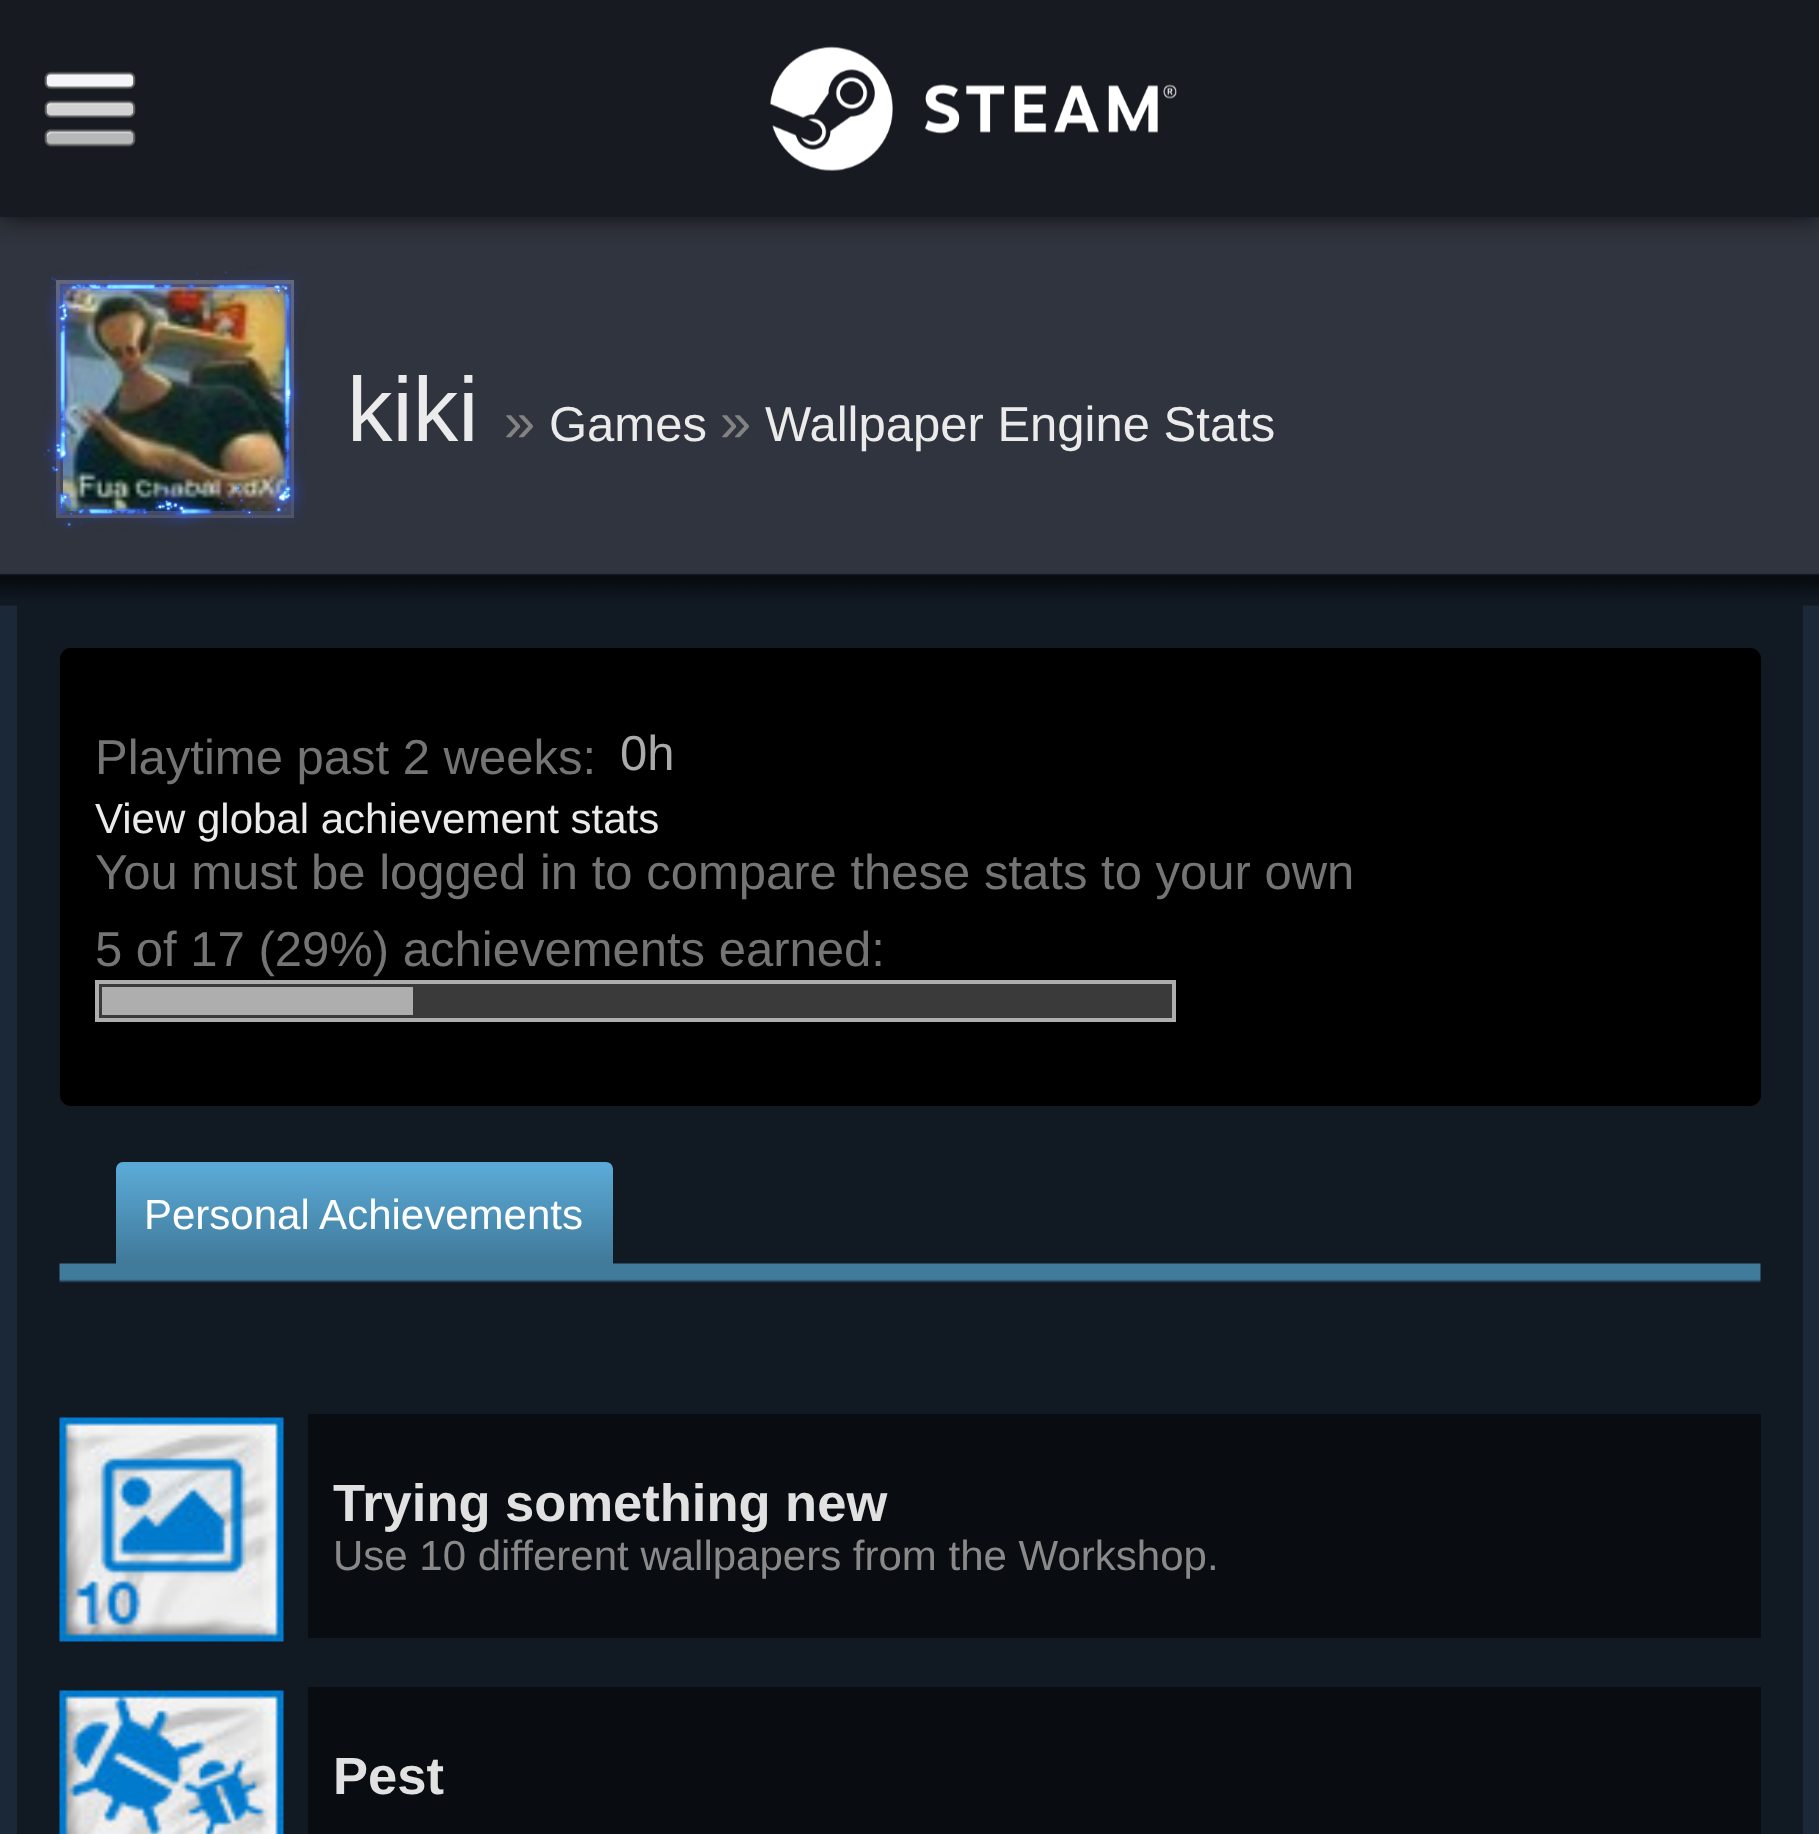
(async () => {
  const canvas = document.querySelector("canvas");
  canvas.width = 1819;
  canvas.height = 1834;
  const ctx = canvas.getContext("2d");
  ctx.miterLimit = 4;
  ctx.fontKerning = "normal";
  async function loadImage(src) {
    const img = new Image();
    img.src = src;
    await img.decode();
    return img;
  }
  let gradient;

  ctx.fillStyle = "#1b2838";
  ctx.fillRect(0, 0, 1819, 1834);
  ctx.drawImage(await loadImage("img/3.png"), 0, 217, 1819, 389);
  ctx.fillStyle = "rgba(0, 0, 0, 0.75)";
  ctx.filter = "blur(12px)";
  ctx.beginPath();
  ctx.rect(0, 0, 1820, 217);
  ctx.fill();
  ctx.filter = "none";
  ctx.fillStyle = "#171a21";
  ctx.fillRect(0, 0, 1819, 217);
  ctx.drawImage(await loadImage("img/1.png"), 44, 71, 92, 76);
  ctx.drawImage(await loadImage("img/2.png"), 770, 46, 407, 125);
  gradient = ctx.createLinearGradient(175, 280, 175, 518);
  gradient.addColorStop(0.05, "#6a6a6a");
  gradient.addColorStop(0.95, "#555555");
  ctx.fillStyle = gradient;
  ctx.fillRect(56, 280, 238, 238);
  gradient = ctx.createLinearGradient(175, 284, 175, 515);
  gradient.addColorStop(0.05, "#515151");
  gradient.addColorStop(0.95, "#474747");
  ctx.fillStyle = gradient;
  ctx.fillRect(60, 284, 231, 231);
  ctx.drawImage(await loadImage("img/5.png"), 63, 287, 224, 224);
  ctx.drawImage(await loadImage("img/4.png"), 41, 265, 267, 266);
  ctx.fillStyle = "#111923";
  ctx.fillRect(17, 605, 1786, 1229);
  ctx.fillStyle = "#000000";
  ctx.beginPath();
  ctx.roundRect(60, 648, 1701, 458, 11);
  ctx.fill();
  ctx.fillStyle = "#3a3a3a";
  ctx.beginPath();
  ctx.rect(97, 982, 1077, 38);
  ctx.fill();
  ctx.strokeStyle = "#aeaeae";
  ctx.lineWidth = 4;
  ctx.stroke();
  ctx.fillStyle = "#aeaeae";
  ctx.fillRect(102, 987, 311, 28);
  ctx.drawImage(await loadImage("img/6.png"), 59, 1263, 1702, 20);
  gradient = ctx.createLinearGradient(364, 1162, 364, 1264);
  gradient.addColorStop(0.05, "#5aa9d6");
  gradient.addColorStop(0.95, "#417b9c");
  ctx.fillStyle = gradient;
  ctx.beginPath();
  ctx.roundRect(116, 1162, 497, 102, [7, 7, 0, 0]);
  ctx.fill();
  ctx.drawImage(await loadImage("img/7.png"), 59, 1417, 225, 225);
  ctx.fillStyle = "#090d12";
  ctx.fillRect(308, 1414, 1453, 224);
  ctx.drawImage(await loadImage("img/8.png"), 59, 1690, 225, 144);
  ctx.fillRect(308, 1687, 1453, 147);
  ctx.font = "91px Liberation Sans";
  ctx.fillStyle = "#ebebeb";
  ctx.fillText("kiki", 347, 441);
  ctx.font = "56px Liberation Sans";
  ctx.fillStyle = "#828282";
  ctx.fillText("»", 504, 441);
  ctx.font = "49px Liberation Sans";
  ctx.fillStyle = "#ebebeb";
  ctx.fillText("Games", 549, 441);
  ctx.font = "56px Liberation Sans";
  ctx.fillStyle = "#828282";
  ctx.fillText("»", 720, 441);
  ctx.font = "49px Liberation Sans";
  ctx.fillStyle = "#ebebeb";
  ctx.fillText("Wallpaper Engine Stats", 765, 441);
  ctx.fillStyle = "#747474";
  ctx.fillText("Playtime past 2 weeks:", 95, 774);
  ctx.fillStyle = "#aaaaaa";
  ctx.fillText("0h", 620, 770);
  ctx.font = "42px Liberation Sans";
  ctx.fillStyle = "#ebebeb";
  ctx.fillText("View global achievement stats", 95, 833);
  ctx.font = "49px Liberation Sans";
  ctx.fillStyle = "#747474";
  ctx.fillText("You must be logged in to compare these stats to your own", 95, 889);
  ctx.fillText("5 of 17 (29%) achievements earned:", 95, 966);
  ctx.font = "42px Liberation Sans";
  ctx.fillStyle = "#ffffff";
  ctx.fillText("Personal Achievements", 144, 1229);
  ctx.font = "bold 52.5px Liberation Sans";
  ctx.fillStyle = "#e1e1e1";
  ctx.fillText("Trying something new", 333, 1521);
  ctx.font = "42px Liberation Sans";
  ctx.fillStyle = "#898989";
  ctx.fillText("Use 10 different wallpapers from the Workshop.", 333, 1570);
  ctx.font = "bold 52.5px Liberation Sans";
  ctx.fillStyle = "#e1e1e1";
  ctx.fillText("Pest", 333, 1794);
})();
